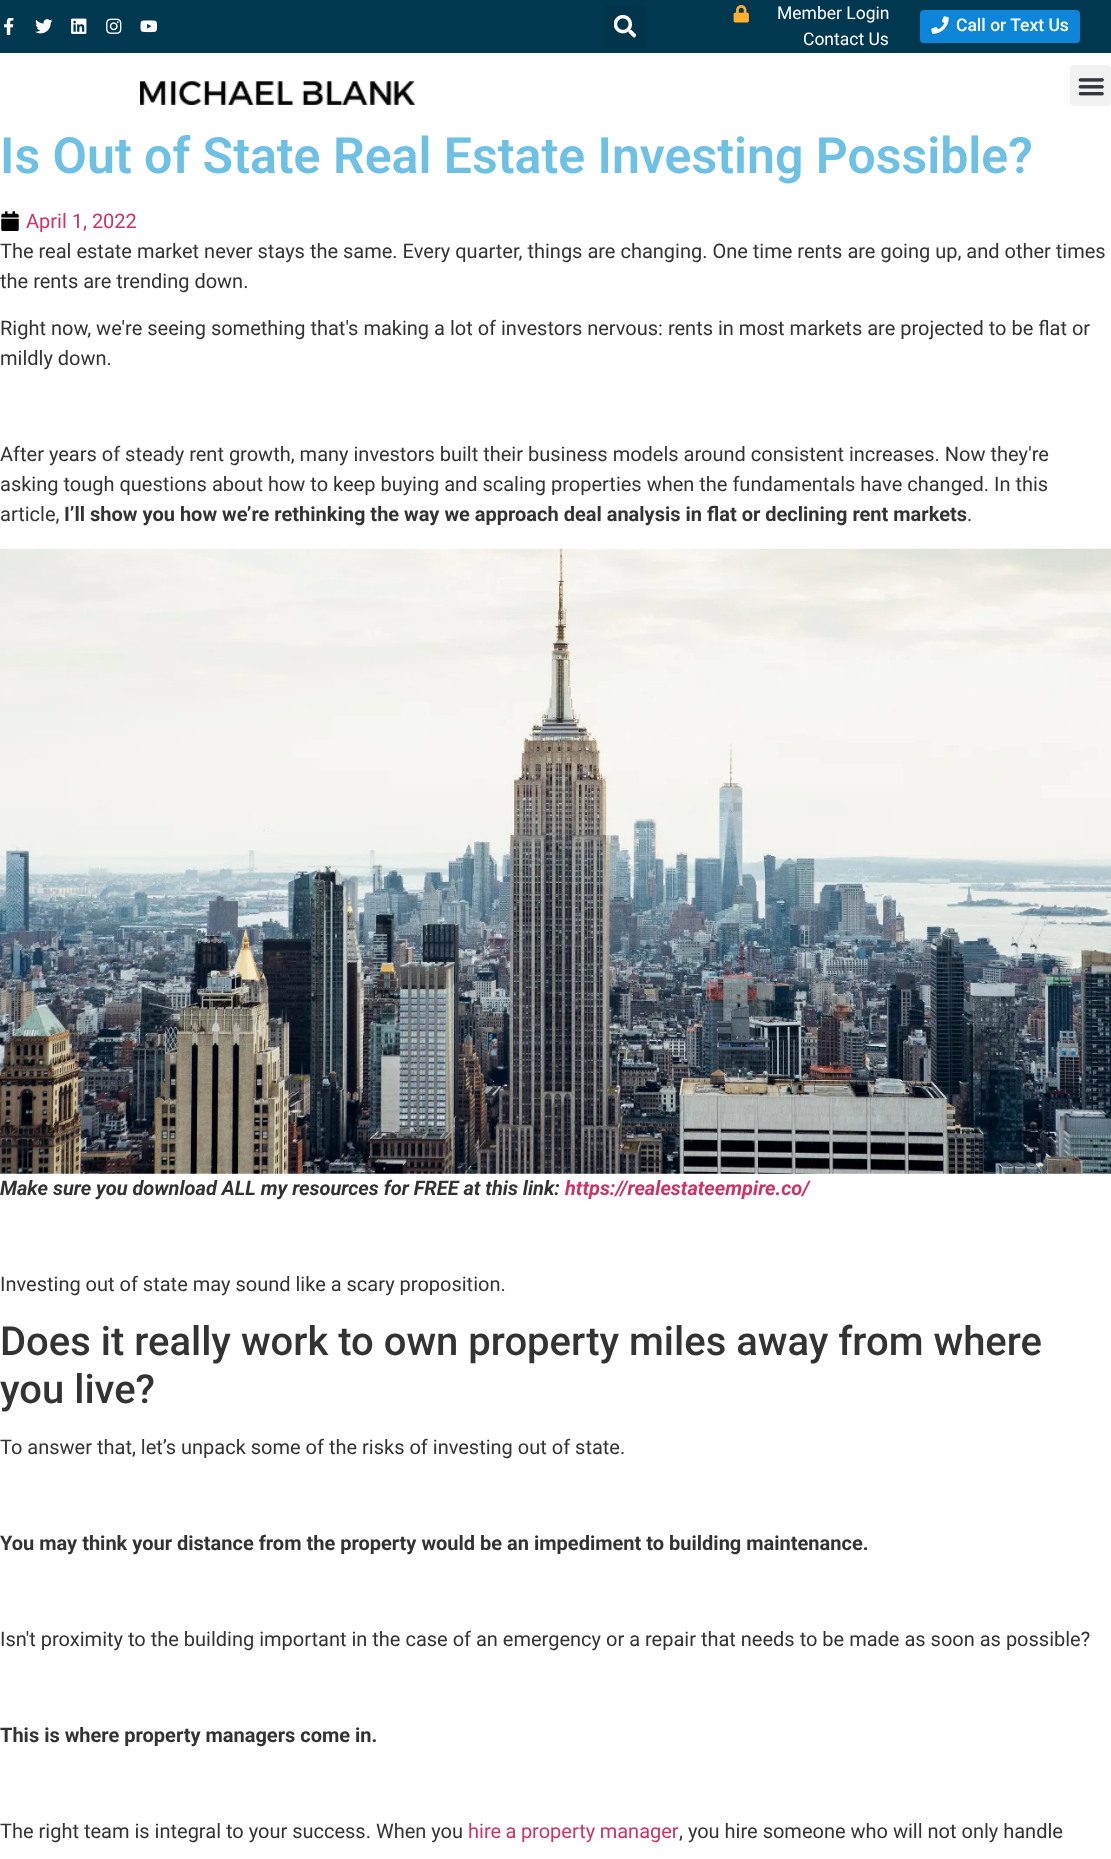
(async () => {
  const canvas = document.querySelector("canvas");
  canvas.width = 1111;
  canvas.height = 1859;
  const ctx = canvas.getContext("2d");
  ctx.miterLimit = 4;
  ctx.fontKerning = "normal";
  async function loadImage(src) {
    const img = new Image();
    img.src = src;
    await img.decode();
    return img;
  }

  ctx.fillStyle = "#ffffff";
  ctx.fillRect(0, 0, 1111, 1859);
  ctx.fillStyle = "#00384f";
  ctx.fillRect(0, 0, 1111, 53);
  ctx.drawImage(await loadImage("img/1.png"), 4, 18, 10, 17);
  ctx.drawImage(await loadImage("img/2.png"), 35, 19, 18, 15);
  ctx.drawImage(await loadImage("img/3.png"), 71, 18, 16, 16);
  ctx.drawImage(await loadImage("img/4.png"), 106, 18, 16, 16);
  ctx.drawImage(await loadImage("img/5.png"), 140, 20, 18, 13);
  ctx.fillStyle = "#00354b";
  ctx.beginPath();
  ctx.roundRect(605, 6, 41, 42, 4);
  ctx.fill();
  ctx.drawImage(await loadImage("img/6.png"), 614, 15, 22, 23);
  ctx.drawImage(await loadImage("img/7.png"), 733, 5, 16, 18);
  ctx.fillStyle = "#0d85d9";
  ctx.beginPath();
  ctx.roundRect(920, 10, 160, 33, 4);
  ctx.fill();
  ctx.drawImage(await loadImage("img/8.png"), 931, 16, 18, 18);
  ctx.drawImage(await loadImage("img/9.png"), 140, 81, 275, 24);
  ctx.fillStyle = "#f2f2f2";
  ctx.beginPath();
  ctx.roundRect(1070, 65, 41, 41, 4);
  ctx.fill();
  ctx.drawImage(await loadImage("img/10.png"), 1078, 78, 26, 18);
  ctx.drawImage(await loadImage("img/11.png"), 1, 211, 18, 20);
  ctx.drawImage(await loadImage("img/12.png"), 0, 548, 1111, 626);
  ctx.font = "17.5px Roboto";
  ctx.fillStyle = "#ffffff";
  ctx.fillText("Member Login", 777, 19);
  ctx.fillText("Contact Us", 803, 45);
  ctx.font = "500 17.5px Roboto";
  ctx.fillText("Call or Text Us", 956, 31);
  ctx.font = "600 50px Roboto";
  ctx.fillStyle = "#6ec1e4";
  ctx.fillText("Is Out of State Real Estate Investing Possible?", 0, 173);
  ctx.font = "20px Roboto";
  ctx.fillStyle = "#cc3366";
  ctx.fillText("April 1, 2022", 26, 228);
  ctx.fillStyle = "#333333";
  for (const [text, x, y] of [
    ["The real estate market never stays the same. Every quarter, things are changing. One time rents are going up, and other times", 0, 258],
    ["the rents are trending down.", 0, 288],
    ["Right now, we're seeing something that's making a lot of investors nervous: rents in most markets are projected to be flat or", 0, 335],
    ["mildly down.", 0, 365],
    ["After years of steady rent growth, many investors built their business models around consistent increases. Now they're", 0, 461],
    ["asking tough questions about how to keep buying and scaling properties when the fundamentals have changed. In this", 0, 491],
    ["article,", 0, 521],
  ]) {
    ctx.fillText(text, x, y);
  }
  ctx.font = "bold 20px Roboto";
  ctx.fillText("I’ll show you how we’re rethinking the way we approach deal analysis in flat or declining rent markets", 64, 521);
  ctx.font = "20px Roboto";
  ctx.fillText(".", 967, 521);
  ctx.font = "italic bold 20px Roboto";
  ctx.fillText("Make sure you download ALL my resources for FREE at this link:", 0, 1195);
  ctx.fillStyle = "#cc3366";
  ctx.fillText("https://realestateempire.co/", 565, 1195);
  ctx.font = "20px Roboto";
  ctx.fillStyle = "#333333";
  ctx.fillText("Investing out of state may sound like a scary proposition.", 0, 1291);
  ctx.font = "500 40px Roboto";
  ctx.fillText("Does it really work to own property miles away from where", 0, 1355);
  ctx.fillText("you live?", 0, 1403);
  ctx.font = "20px Roboto";
  ctx.fillText("To answer that, let’s unpack some of the risks of investing out of state.", 0, 1454);
  ctx.font = "bold 20px Roboto";
  ctx.fillText("You may think your distance from the property would be an impediment to building maintenance.", 0, 1550);
  ctx.font = "20px Roboto";
  ctx.fillText("Isn't proximity to the building important in the case of an emergency or a repair that needs to be made as soon as possible?", 0, 1646);
  ctx.font = "bold 20px Roboto";
  ctx.fillText("This is where property managers come in.", 0, 1742);
  ctx.font = "20px Roboto";
  ctx.fillText("The right team is integral to your success. When you", 0, 1838);
  ctx.wordSpacing = "-0.5px";
  ctx.fillStyle = "#cc3366";
  ctx.fillText("hire a property manager", 468, 1838);
  ctx.wordSpacing = "0px";
  ctx.fillStyle = "#333333";
  ctx.fillText(", you hire someone who will not only handle", 679, 1838);
})();
